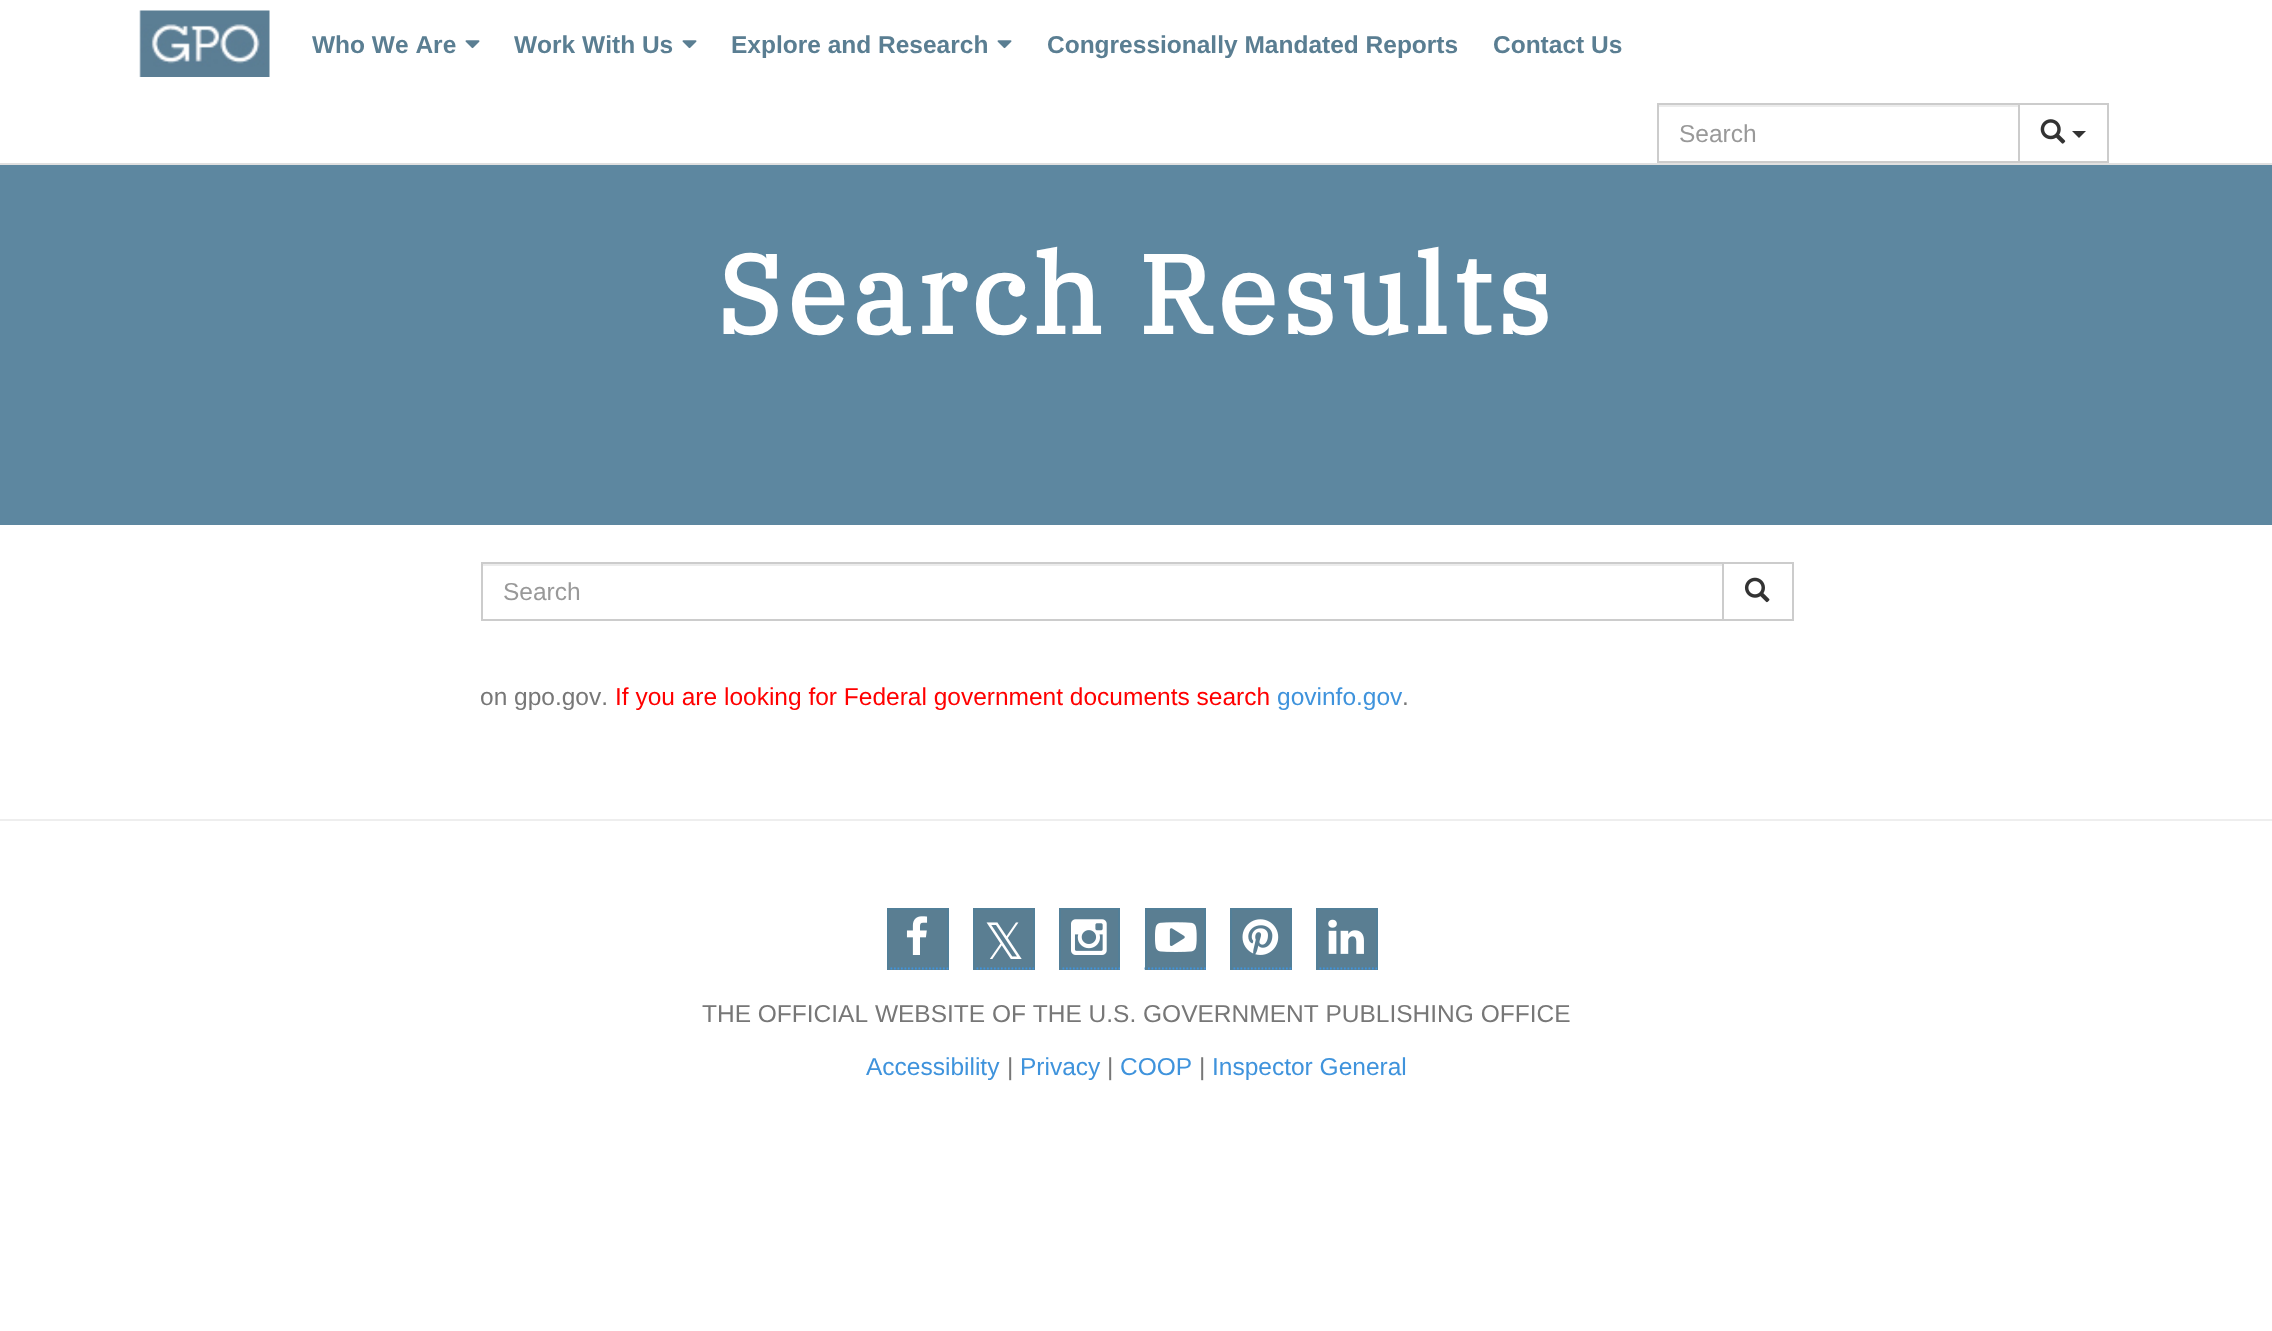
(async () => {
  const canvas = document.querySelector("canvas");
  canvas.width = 2272;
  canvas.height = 1331;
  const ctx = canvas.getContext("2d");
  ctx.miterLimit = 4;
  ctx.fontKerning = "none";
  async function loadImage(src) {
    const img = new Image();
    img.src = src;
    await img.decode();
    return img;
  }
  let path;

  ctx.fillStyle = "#ffffff";
  ctx.fillRect(0, 0, 2272, 1331);
  ctx.fillStyle = "#e0e0e0";
  ctx.fillRect(0, 163, 2272, 2);
  ctx.drawImage(await loadImage("img/1.png"), 139, 10, 131, 67);
  ctx.drawImage(await loadImage("img/2.png"), 465, 40, 15, 9);
  ctx.drawImage(await loadImage("img/2.png"), 682, 40, 15, 9);
  ctx.drawImage(await loadImage("img/2.png"), 997, 40, 15, 9);
  ctx.fillStyle = "#ececec";
  ctx.fillRect(1659, 105, 359, 2);
  ctx.strokeStyle = "#cccccc";
  ctx.lineWidth = 2;
  ctx.strokeRect(1658, 104, 361, 58);
  ctx.strokeRect(2019, 104, 89, 58);
  ctx.drawImage(await loadImage("img/3.png"), 2040, 119, 26, 25);
  ctx.fillStyle = "#333333";
  path = new Path2D("M2072 131H2086L2079 138Z");
  ctx.fill(path);
  ctx.fillStyle = "#5d87a0";
  ctx.fillRect(0, 165, 2272, 360);
  ctx.fillStyle = "#ececec";
  ctx.fillRect(483, 564, 1239, 2);
  ctx.strokeRect(482, 563, 1241, 57);
  ctx.strokeRect(1723, 563, 70, 57);
  ctx.drawImage(await loadImage("img/4.png"), 1744, 577, 26, 26);
  for (const [x, y, w, h, color] of [
    [0, 819, 2272, 2, "#eeeeee"],
    [889, 910, 58, 60, "#5a7e92"],
    [887, 908, 62, 2, "#527f98"],
    [947, 908, 2, 62, "#527f98"],
  ]) {
    ctx.fillStyle = color;
    ctx.fillRect(x, y, w, h);
  }
  path = new Path2D("M887 968.5H948.5");
  ctx.strokeStyle = "#3f93dc";
  ctx.lineWidth = 1.8;
  ctx.setLineDash([1.75, 1.75]);
  ctx.stroke(path);
  ctx.fillRect(887, 908, 2, 62);
  ctx.drawImage(await loadImage("img/5.png"), 906, 916, 22, 39);
  for (const [x, y, w, h, color] of [
    [975, 910, 58, 60, "#5a7e92"],
    [973, 908, 61, 2, "#527f98"],
    [1033, 908, 2, 62, "#527f98"],
  ]) {
    ctx.fillStyle = color;
    ctx.fillRect(x, y, w, h);
  }
  path = new Path2D("M973 968.5H1034");
  ctx.stroke(path);
  for (const [x, y, w, h, color] of [
    [973, 908, 2, 62, "#527f98"],
    [1061, 910, 57, 60, "#5a7e92"],
    [1059, 908, 61, 2, "#527f98"],
    [1118, 908, 2, 62, "#527f98"],
  ]) {
    ctx.fillStyle = color;
    ctx.fillRect(x, y, w, h);
  }
  path = new Path2D("M1059 968.5H1120");
  ctx.stroke(path);
  ctx.fillRect(1059, 908, 2, 62);
  ctx.drawImage(await loadImage("img/6.png"), 1071, 919, 36, 36);
  for (const [x, y, w, h, color] of [
    [1147, 910, 57, 60, "#5a7e92"],
    [1145, 908, 61, 2, "#527f98"],
    [1204, 908, 2, 62, "#527f98"],
  ]) {
    ctx.fillStyle = color;
    ctx.fillRect(x, y, w, h);
  }
  path = new Path2D("M1144.5 968.5H1206");
  ctx.stroke(path);
  ctx.fillRect(1145, 908, 2, 62);
  ctx.drawImage(await loadImage("img/7.png"), 1155, 922, 42, 30);
  for (const [x, y, w, h, color] of [
    [1232, 910, 58, 60, "#5a7e92"],
    [1230, 908, 62, 2, "#527f98"],
    [1290, 908, 2, 62, "#527f98"],
  ]) {
    ctx.fillStyle = color;
    ctx.fillRect(x, y, w, h);
  }
  path = new Path2D("M1230 968.5H1291.5");
  ctx.stroke(path);
  ctx.fillRect(1230, 908, 2, 62);
  ctx.drawImage(await loadImage("img/8.png"), 1242, 919, 37, 36);
  for (const [x, y, w, h, color] of [
    [1318, 910, 58, 60, "#5a7e92"],
    [1316, 908, 61, 2, "#527f98"],
    [1376, 908, 2, 62, "#527f98"],
  ]) {
    ctx.fillStyle = color;
    ctx.fillRect(x, y, w, h);
  }
  path = new Path2D("M1316 968.5H1377");
  ctx.stroke(path);
  ctx.fillRect(1316, 908, 2, 62);
  ctx.drawImage(await loadImage("img/9.png"), 1328, 919, 36, 35);
  ctx.font = "bold 24.5px Liberation Sans";
  ctx.fillStyle = "#5a7e92";
  for (const [text, x, y] of [
    ["Who We Are", 312, 53],
    ["Work With Us", 514, 53],
    ["Explore and Research", 731, 53],
    ["Congressionally Mandated Reports", 1047, 53],
    ["Contact Us", 1493, 53],
  ]) {
    ctx.fillText(text, x, y);
  }
  ctx.font = "24.5px Liberation Sans";
  ctx.fillStyle = "#999999";
  ctx.fillText("Search", 1679, 142);
  ctx.letterSpacing = "5.25px";
  ctx.font = "bold 110.25px IBM Plex Serif";
  ctx.fillStyle = "#ffffff";
  ctx.fillText("Search Results", 717, 334);
  ctx.letterSpacing = "0px";
  ctx.font = "24.5px Liberation Sans";
  ctx.fillStyle = "#999999";
  ctx.fillText("Search", 503, 600);
  ctx.fillStyle = "#777777";
  ctx.fillText("on gpo.gov.", 480, 705);
  ctx.fillStyle = "#ff0000";
  ctx.fillText("If you are looking for Federal government documents search", 615, 705);
  ctx.fillStyle = "#3f93dc";
  ctx.fillText("govinfo.gov", 1277, 705);
  ctx.fillStyle = "#777777";
  ctx.fillText(".", 1402, 705);
  ctx.font = "50px DejaVu Sans";
  ctx.fillStyle = "#ffffff";
  ctx.fillText("𝕏", 984, 959);
  ctx.font = "24.5px Liberation Sans";
  ctx.fillStyle = "#777777";
  ctx.fillText("THE OFFICIAL WEBSITE OF THE U.S. GOVERNMENT PUBLISHING OFFICE", 702, 1022);
  ctx.fillStyle = "#3f93dc";
  ctx.fillText("Accessibility", 866, 1075);
  ctx.fillStyle = "#777777";
  ctx.fillText("|", 1007, 1075);
  ctx.fillStyle = "#3f93dc";
  ctx.fillText("Privacy", 1020, 1075);
  ctx.fillStyle = "#777777";
  ctx.fillText("|", 1107, 1075);
  ctx.fillStyle = "#3f93dc";
  ctx.fillText("COOP", 1120, 1075);
  ctx.fillStyle = "#777777";
  ctx.fillText("|", 1199, 1075);
  ctx.fillStyle = "#3f93dc";
  ctx.fillText("Inspector General", 1212, 1075);
})();
